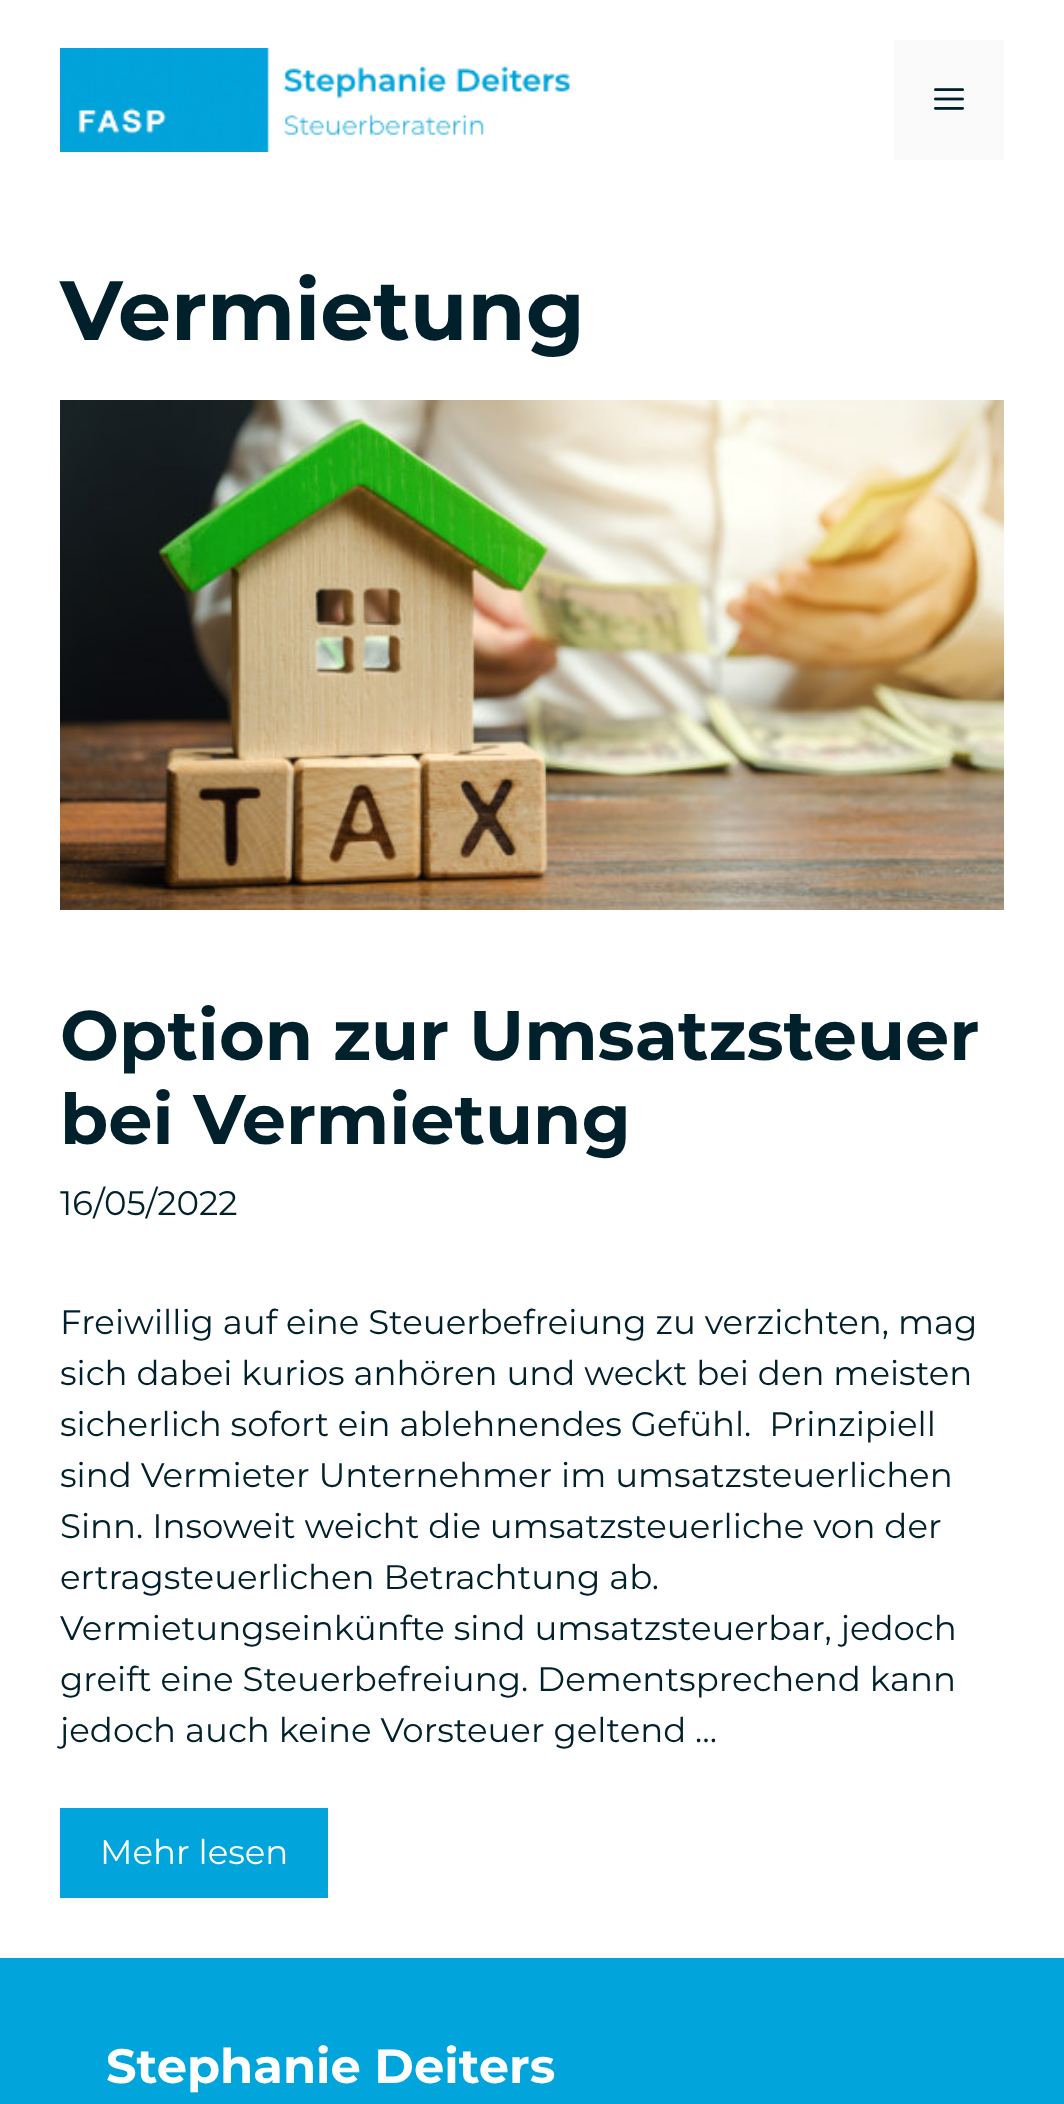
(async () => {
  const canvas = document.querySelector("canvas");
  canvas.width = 1064;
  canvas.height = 2104;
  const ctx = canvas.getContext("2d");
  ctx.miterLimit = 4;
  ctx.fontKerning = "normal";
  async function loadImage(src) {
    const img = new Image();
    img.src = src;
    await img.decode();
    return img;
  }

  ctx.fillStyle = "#ffffff";
  ctx.fillRect(0, 0, 1064, 2104);
  ctx.drawImage(await loadImage("img/1.png"), 60, 48, 510, 104);
  ctx.fillStyle = "#fafafa";
  ctx.fillRect(894, 40, 110, 120);
  ctx.drawImage(await loadImage("img/2.png"), 934, 88, 30, 22);
  ctx.drawImage(await loadImage("img/3.png"), 60, 400, 944, 510);
  ctx.fillStyle = "#01a5db";
  ctx.fillRect(60, 1808, 268, 90);
  ctx.fillRect(0, 1958, 1064, 146);
  ctx.font = "100 84px Montserrat";
  ctx.fillStyle = "#00202b";
  ctx.fillText("Vermietung", 60, 340);
  ctx.font = "100 70px Montserrat";
  ctx.fillText("Option zur Umsatzsteuer", 60, 1060);
  ctx.fillText("bei Vermietung", 60, 1144);
  ctx.font = "100 34px 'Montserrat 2'";
  for (const [text, x, y] of [
    ["16/05/2022", 60, 1215],
    ["Freiwillig auf eine Steuerbefreiung zu verzichten, mag", 60, 1334],
    ["sich dabei kurios anhören und weckt bei den meisten", 60, 1385],
    ["sicherlich sofort ein ablehnendes Gefühl.  Prinzipiell", 60, 1436],
    ["sind Vermieter Unternehmer im umsatzsteuerlichen", 60, 1487],
    ["Sinn. Insoweit weicht die umsatzsteuerliche von der", 60, 1538],
    ["ertragsteuerlichen Betrachtung ab.", 60, 1589],
    ["Vermietungseinkünfte sind umsatzsteuerbar, jedoch", 60, 1640],
    ["greift eine Steuerbefreiung. Dementsprechend kann", 60, 1691],
    ["jedoch auch keine Vorsteuer geltend …", 60, 1742],
  ]) {
    ctx.fillText(text, x, y);
  }
  ctx.fillStyle = "#ffffff";
  ctx.fillText("Mehr lesen", 100, 1864);
  ctx.font = "100 48px Montserrat";
  ctx.fillText("Stephanie Deiters", 106, 2083);
})();
